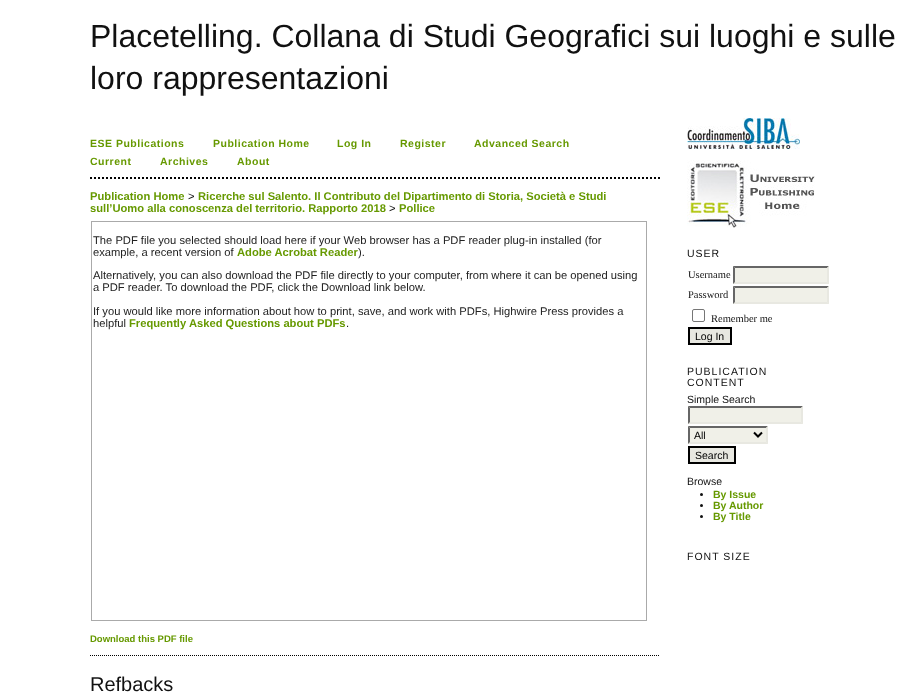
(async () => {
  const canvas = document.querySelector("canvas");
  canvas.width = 904;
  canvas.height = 694;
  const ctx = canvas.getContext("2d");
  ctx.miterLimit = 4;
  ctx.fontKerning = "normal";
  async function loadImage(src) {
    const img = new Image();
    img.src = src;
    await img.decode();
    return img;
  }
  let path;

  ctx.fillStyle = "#ffffff";
  ctx.fillRect(0, 0, 904, 694);
  path = new Path2D("M90 178H660");
  ctx.strokeStyle = "#000000";
  ctx.lineWidth = 2;
  ctx.setLineDash([2, 2]);
  ctx.stroke(path);
  ctx.strokeStyle = "#aaaaaa";
  ctx.lineWidth = 1;
  ctx.setLineDash([]);
  ctx.strokeRect(91.5, 221.5, 555, 399);
  path = new Path2D("M90 655.5H660");
  ctx.strokeStyle = "#000000";
  ctx.setLineDash([1, 1]);
  ctx.stroke(path);
  ctx.drawImage(await loadImage("img/1.png"), 687, 118, 113, 31);
  ctx.drawImage(await loadImage("img/2.png"), 687, 160, 128, 68);
  ctx.fillStyle = "#f0f0e8";
  ctx.fillRect(733, 266, 96, 18);
  ctx.fillStyle = "#666666";
  path = new Path2D("M733 266H829L827 268H735Z");
  ctx.fill(path);
  ctx.fillStyle = "#e8e8e1";
  path = new Path2D("M829 266V284L827 282V268Z");
  ctx.fill(path);
  path = new Path2D("M829 284H733L735 282H827Z");
  ctx.fill(path);
  ctx.fillStyle = "#666666";
  path = new Path2D("M733 284V266L735 268V282Z");
  ctx.fill(path);
  ctx.fillStyle = "#f0f0e8";
  ctx.fillRect(733, 286, 96, 18);
  ctx.fillStyle = "#666666";
  path = new Path2D("M733 286H829L827 288H735Z");
  ctx.fill(path);
  ctx.fillStyle = "#e8e8e1";
  path = new Path2D("M829 286V304L827 302V288Z");
  ctx.fill(path);
  path = new Path2D("M829 304H733L735 302H827Z");
  ctx.fill(path);
  ctx.fillStyle = "#666666";
  path = new Path2D("M733 304V286L735 288V302Z");
  ctx.fill(path);
  ctx.beginPath();
  ctx.roundRect(692.5, 309.5, 12, 12, 1.5);
  ctx.strokeStyle = "#767676";
  ctx.setLineDash([]);
  ctx.stroke();
  ctx.fillStyle = "#e8e8e1";
  ctx.beginPath();
  ctx.rect(689, 328, 42, 16);
  ctx.fill();
  ctx.strokeStyle = "#000000";
  ctx.lineWidth = 2;
  ctx.stroke();
  ctx.fillStyle = "#f0f0e8";
  ctx.fillRect(688, 406, 115, 18);
  ctx.fillStyle = "#666666";
  path = new Path2D("M688 406H803L801 408H690Z");
  ctx.fill(path);
  ctx.fillStyle = "#e8e8e1";
  path = new Path2D("M803 406V424L801 422V408Z");
  ctx.fill(path);
  path = new Path2D("M803 424H688L690 422H801Z");
  ctx.fill(path);
  ctx.fillStyle = "#666666";
  path = new Path2D("M688 424V406L690 408V422Z");
  ctx.fill(path);
  ctx.fillStyle = "#f0f0e8";
  ctx.fillRect(688, 426, 80, 18);
  ctx.fillStyle = "#666666";
  path = new Path2D("M688 426H768L766 428H690Z");
  ctx.fill(path);
  ctx.fillStyle = "#e8e8e1";
  path = new Path2D("M768 426V444L766 442V428Z");
  ctx.fill(path);
  path = new Path2D("M768 444H688L690 442H766Z");
  ctx.fill(path);
  ctx.fillStyle = "#666666";
  path = new Path2D("M688 444V426L690 428V442Z");
  ctx.fill(path);
  path = new Path2D("M754 432.5L758 436.5L762 432.5");
  ctx.stroke(path);
  ctx.fillStyle = "#e8e8e1";
  ctx.beginPath();
  ctx.rect(689, 447, 46, 16);
  ctx.fill();
  ctx.stroke();
  ctx.fillStyle = "#111111";
  ctx.beginPath();
  ctx.arc(701.5, 494.5, 1.5, 0, Math.PI * 2);
  ctx.fill();
  ctx.beginPath();
  ctx.arc(701.5, 505.5, 1.5, 0, Math.PI * 2);
  ctx.fill();
  ctx.beginPath();
  ctx.arc(701.5, 516.5, 1.5, 0, Math.PI * 2);
  ctx.fill();
  ctx.font = "32px Liberation Sans";
  ctx.fillText("Placetelling. Collana di Studi Geografici sui luoghi e sulle", 90, 47);
  ctx.fillText("loro rappresentazioni", 90, 89);
  ctx.letterSpacing = "0.5px";
  ctx.font = "bold 10.5px Liberation Sans";
  ctx.fillStyle = "#669900";
  for (const [text, x, y] of [
    ["ESE Publications", 90, 147],
    ["Publication Home", 213, 147],
    ["Log In", 337, 147],
    ["Register", 400, 147],
    ["Advanced Search", 474, 147],
    ["Current", 90, 165],
    ["Archives", 160, 165],
    ["About", 237, 165],
  ]) {
    ctx.fillText(text, x, y);
  }
  ctx.letterSpacing = "0px";
  ctx.font = "bold 11.2px Liberation Sans";
  ctx.fillText("Publication Home", 90, 200);
  ctx.font = "11.2px Liberation Sans";
  ctx.fillStyle = "#111111";
  ctx.fillText(">", 188, 200);
  ctx.font = "bold 11.2px Liberation Sans";
  ctx.fillStyle = "#669900";
  ctx.fillText("Ricerche sul Salento. Il Contributo del Dipartimento di Storia, Società e Studi", 198, 200);
  ctx.fillText("sull’Uomo alla conoscenza del territorio. Rapporto 2018", 90, 212);
  ctx.font = "11.2px Liberation Sans";
  ctx.fillStyle = "#111111";
  ctx.fillText(">", 389, 212);
  ctx.font = "bold 11.2px Liberation Sans";
  ctx.fillStyle = "#669900";
  ctx.fillText("Pollice", 399, 212);
  ctx.font = "11.2px Liberation Sans";
  ctx.fillStyle = "#222222";
  ctx.fillText("The PDF file you selected should load here if your Web browser has a PDF reader plug-in installed (for", 93, 244);
  ctx.fillText("example, a recent version of", 93, 256);
  ctx.font = "bold 11.2px Liberation Sans";
  ctx.fillStyle = "#669900";
  ctx.fillText("Adobe Acrobat Reader", 237, 256);
  ctx.font = "11.2px Liberation Sans";
  ctx.fillStyle = "#222222";
  for (const [text, x, y] of [
    [").", 358, 256],
    ["Alternatively, you can also download the PDF file directly to your computer, from where it can be opened using", 93, 279],
    ["a PDF reader. To download the PDF, click the Download link below.", 93, 291],
    ["If you would like more information about how to print, save, and work with PDFs, Highwire Press provides a", 93, 315],
    ["helpful", 93, 327],
  ]) {
    ctx.fillText(text, x, y);
  }
  ctx.font = "bold 11.2px Liberation Sans";
  ctx.fillStyle = "#669900";
  ctx.fillText("Frequently Asked Questions about PDFs", 129, 327);
  ctx.font = "11.2px Liberation Sans";
  ctx.fillStyle = "#222222";
  ctx.fillText(".", 346, 327);
  ctx.font = "bold 9.5px Liberation Sans";
  ctx.fillStyle = "#669900";
  ctx.fillText("Download this PDF file", 90, 642);
  ctx.font = "20px Liberation Sans";
  ctx.fillStyle = "#111111";
  ctx.fillText("Refbacks", 90, 691);
  ctx.letterSpacing = "1px";
  ctx.font = "10.5px Liberation Sans";
  ctx.fillText("USER", 687, 257);
  ctx.letterSpacing = "0px";
  ctx.font = "10.5px Liberation Serif";
  for (const [text, x, y] of [
    ["Username", 688, 278],
    ["Password", 688, 298],
    ["Remember me", 711, 322],
  ]) {
    ctx.fillText(text, x, y);
  }
  ctx.font = "10.5px Liberation Sans";
  ctx.fillStyle = "#000000";
  ctx.fillText("Log In", 695, 340);
  ctx.letterSpacing = "1px";
  ctx.fillStyle = "#111111";
  ctx.fillText("PUBLICATION", 687, 375);
  ctx.fillText("CONTENT", 687, 386);
  ctx.letterSpacing = "0px";
  ctx.fillText("Simple Search", 687, 403);
  ctx.fillStyle = "#000000";
  ctx.fillText("All", 694, 439);
  ctx.fillText("Search", 695, 459);
  ctx.fillStyle = "#111111";
  ctx.fillText("Browse", 687, 485);
  ctx.font = "bold 10.5px Liberation Sans";
  ctx.fillStyle = "#669900";
  for (const [text, x, y] of [
    ["By Issue", 713, 498],
    ["By Author", 713, 509],
    ["By Title", 713, 520],
  ]) {
    ctx.fillText(text, x, y);
  }
  ctx.letterSpacing = "1px";
  ctx.font = "10.5px Liberation Sans";
  ctx.fillStyle = "#111111";
  ctx.fillText("FONT SIZE", 687, 560);
})();
